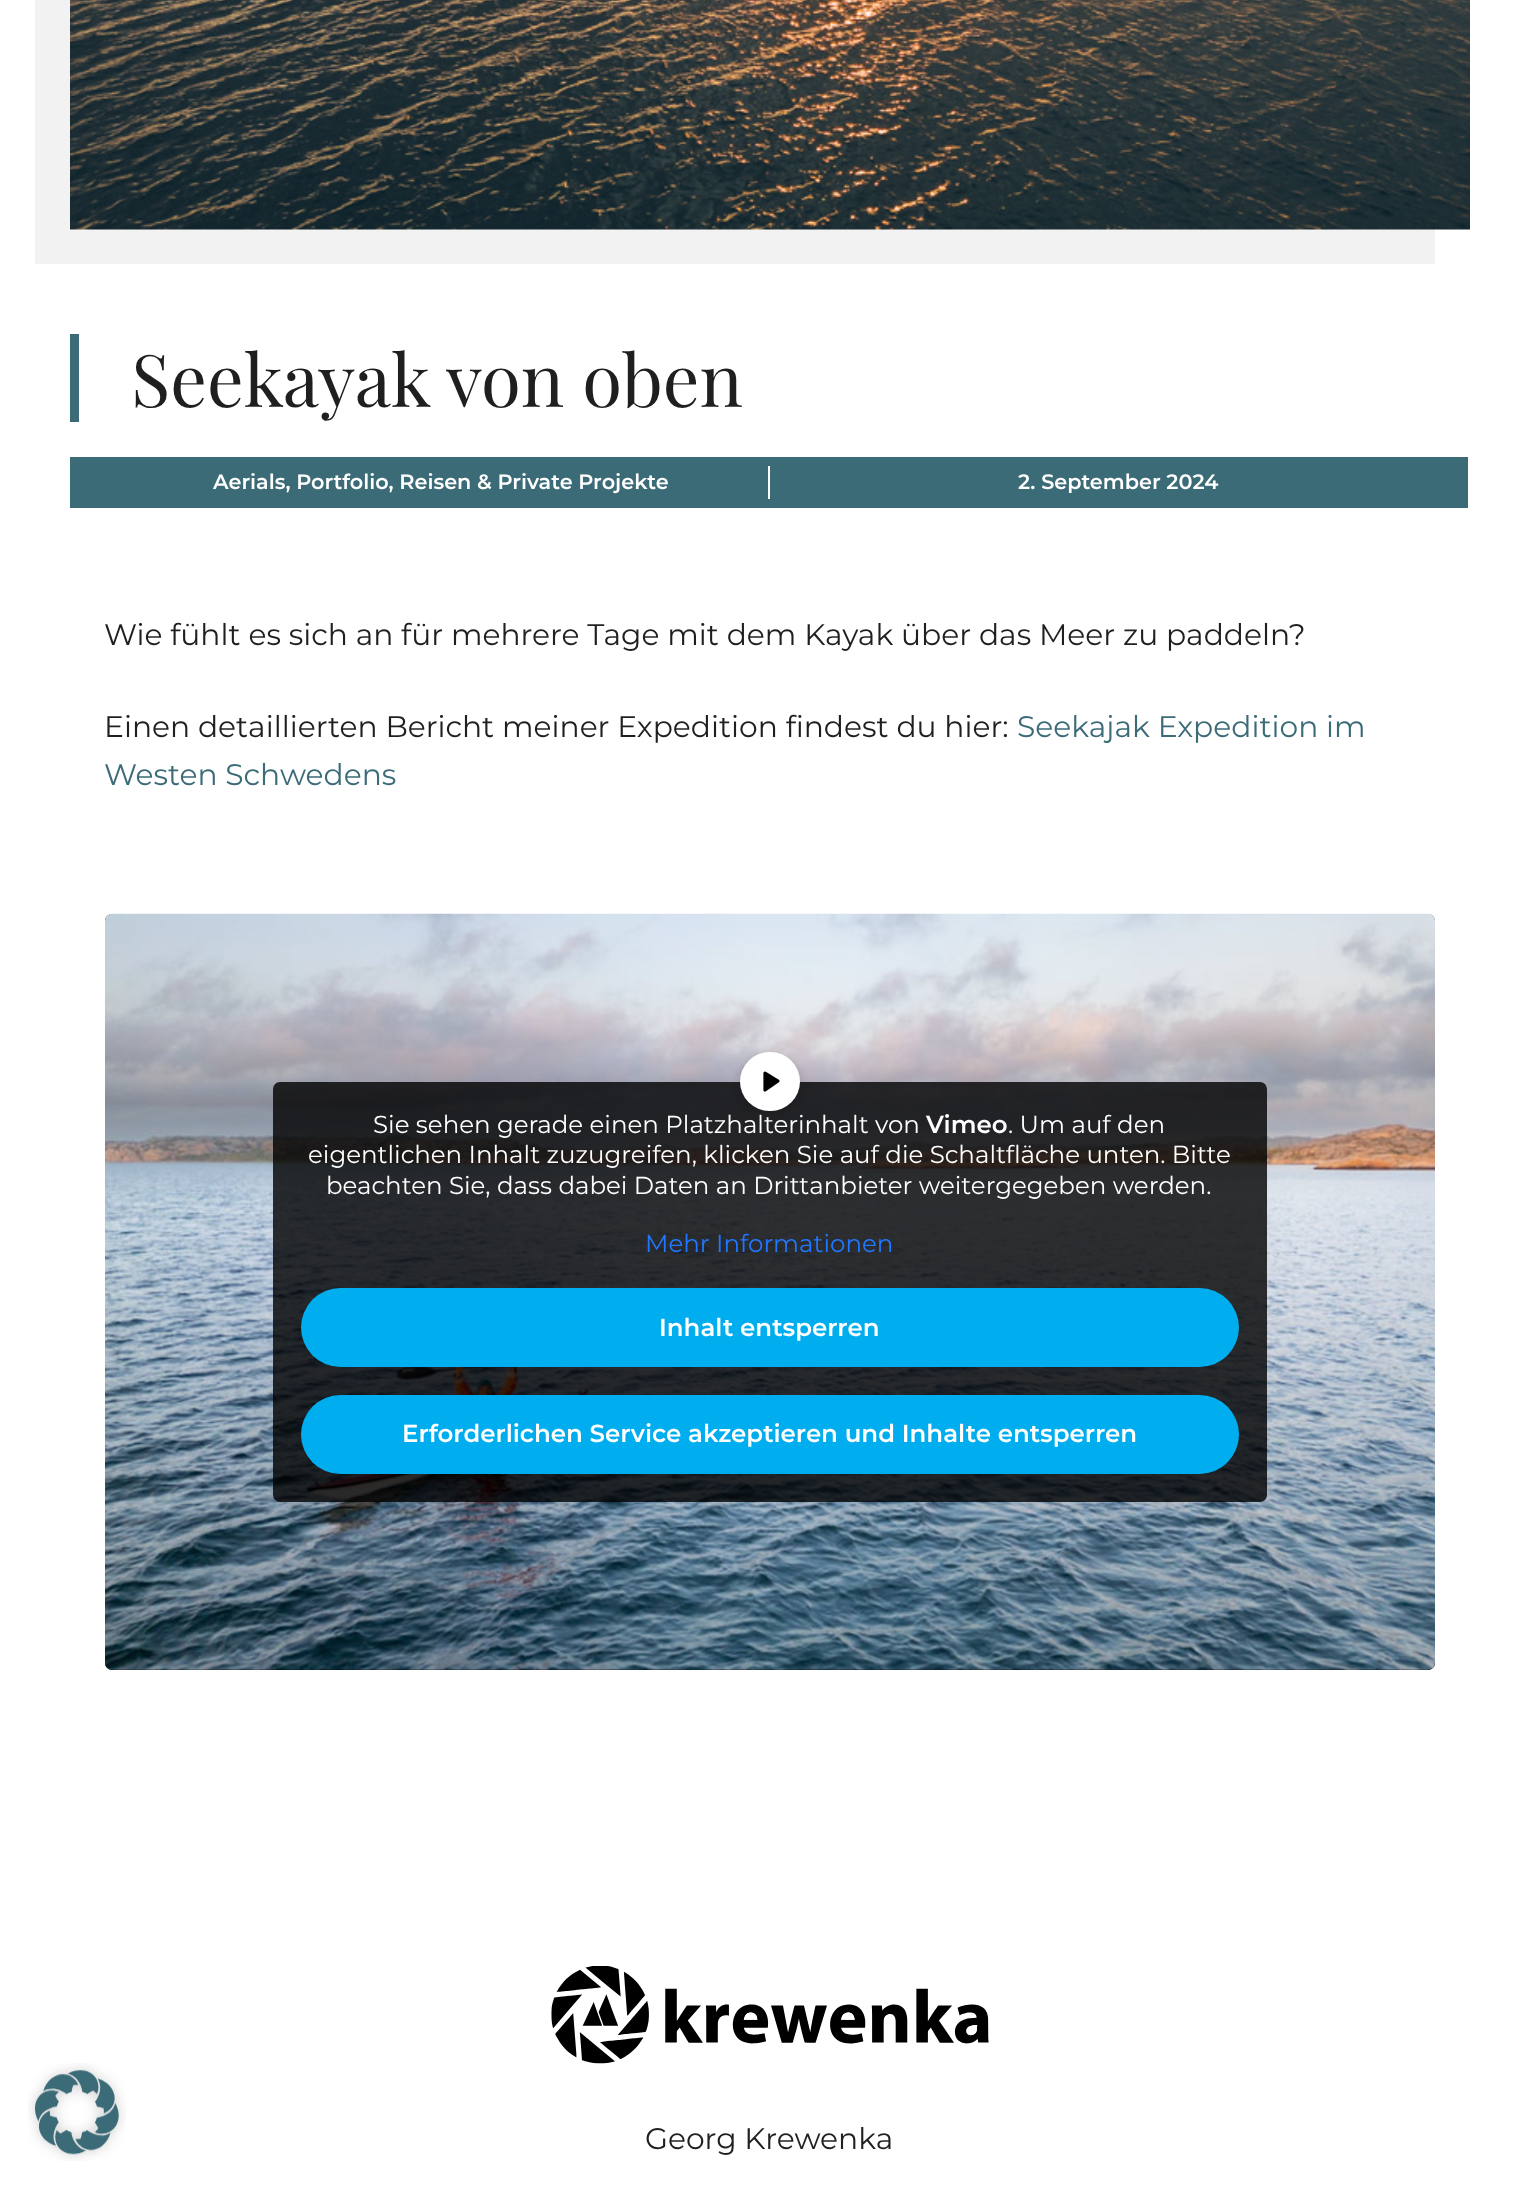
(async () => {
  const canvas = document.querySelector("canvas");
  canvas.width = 1538;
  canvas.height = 2188;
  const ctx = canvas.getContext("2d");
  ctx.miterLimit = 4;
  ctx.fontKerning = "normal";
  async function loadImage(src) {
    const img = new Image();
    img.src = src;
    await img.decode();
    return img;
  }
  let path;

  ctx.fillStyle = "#ffffff";
  ctx.fillRect(0, 0, 1538, 2188);
  ctx.fillStyle = "#f2f2f2";
  ctx.fillRect(35, 0, 1400, 264);
  ctx.drawImage(await loadImage("img/1.png"), 70, 0, 1400, 230);
  for (const [x, y, w, h, color] of [
    [70, 334, 9, 88, "#3c6b78"],
    [70, 457, 1398, 51, "#3c6b78"],
    [768, 466, 2, 33, "#ffffff"],
  ]) {
    ctx.fillStyle = color;
    ctx.fillRect(x, y, w, h);
  }
  ctx.fillStyle = "#000000";
  ctx.beginPath();
  ctx.roundRect(105, 914, 1330, 756, 7);
  ctx.fill();
  ctx.drawImage(await loadImage("img/2.png"), 105, 913, 1330, 757);
  ctx.fillStyle = "rgba(0, 0, 0, 0.8)";
  ctx.beginPath();
  ctx.roundRect(273, 1082, 994, 420, 7);
  ctx.fill();
  ctx.fillStyle = "rgba(0, 0, 0, 0.15)";
  ctx.filter = "blur(4.5px)";
  ctx.beginPath();
  ctx.roundRect(740, 1054, 60, 59, 29.5);
  ctx.fill();
  ctx.filter = "none";
  ctx.fillStyle = "#ffffff";
  ctx.beginPath();
  ctx.roundRect(740, 1052, 60, 59, 29.5);
  ctx.fill();
  ctx.fillStyle = "#000000";
  path = new Path2D("M765 1090V1073L778 1081Z");
  ctx.fill(path);
  ctx.strokeStyle = "#000000";
  ctx.lineWidth = 3.2;
  ctx.lineCap = "round";
  ctx.lineJoin = "round";
  ctx.stroke(path);
  ctx.fillStyle = "#00adef";
  ctx.beginPath();
  ctx.roundRect(301, 1288, 938, 79, 39.5);
  ctx.fill();
  ctx.beginPath();
  ctx.roundRect(301, 1395, 938, 79, 39.5);
  ctx.fill();
  ctx.drawImage(await loadImage("img/3.png"), 28, 2063, 98, 98);
  ctx.drawImage(await loadImage("img/4.png"), 551, 1966, 438, 98);
  ctx.font = "72.6px Playfair Display";
  ctx.fillStyle = "#1f1f1f";
  ctx.fillText("Seekayak von oben", 131, 407);
  ctx.font = "100 20.8px Montserrat";
  ctx.fillStyle = "#ffffff";
  ctx.fillText("Aerials, Portfolio, Reisen & Private Projekte", 213, 489);
  ctx.fillText("2. September 2024", 1018, 489);
  ctx.font = "100 29.75px 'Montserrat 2'";
  ctx.fillStyle = "#1f1f1f";
  ctx.fillText("Wie fühlt es sich an für mehrere Tage mit dem Kayak über das Meer zu paddeln?", 104, 645);
  ctx.fillText("Einen detaillierten Bericht meiner Expedition findest du hier:", 104, 737);
  ctx.fillStyle = "#3c6b78";
  ctx.fillText("Seekajak Expedition im", 1017, 737);
  ctx.fillText("Westen Schwedens", 104, 785);
  ctx.font = "100 24.5px 'Montserrat 2'";
  ctx.fillStyle = "#ffffff";
  ctx.fillText("Sie sehen gerade einen Platzhalterinhalt von", 373, 1133);
  ctx.font = "100 24.5px Montserrat";
  ctx.fillText("Vimeo", 926, 1133);
  ctx.font = "100 24.5px 'Montserrat 2'";
  for (const [text, x, y] of [
    [". Um auf den", 1008, 1133],
    ["eigentlichen Inhalt zuzugreifen, klicken Sie auf die Schaltfläche unten. Bitte", 308, 1163],
    ["beachten Sie, dass dabei Daten an Drittanbieter weitergegeben werden.", 326, 1194],
  ]) {
    ctx.fillText(text, x, y);
  }
  ctx.fillStyle = "#2277ff";
  ctx.fillText("Mehr Informationen", 645, 1252);
  ctx.font = "100 24.5px Montserrat";
  ctx.fillStyle = "#ffffff";
  ctx.fillText("Inhalt entsperren", 659, 1336);
  ctx.fillText("Erforderlichen Service akzeptieren und Inhalte entsperren", 402, 1442);
  ctx.font = "100 29.75px 'Montserrat 2'";
  ctx.fillStyle = "#1f1f1f";
  ctx.fillText("Georg Krewenka", 645, 2149);
})();
